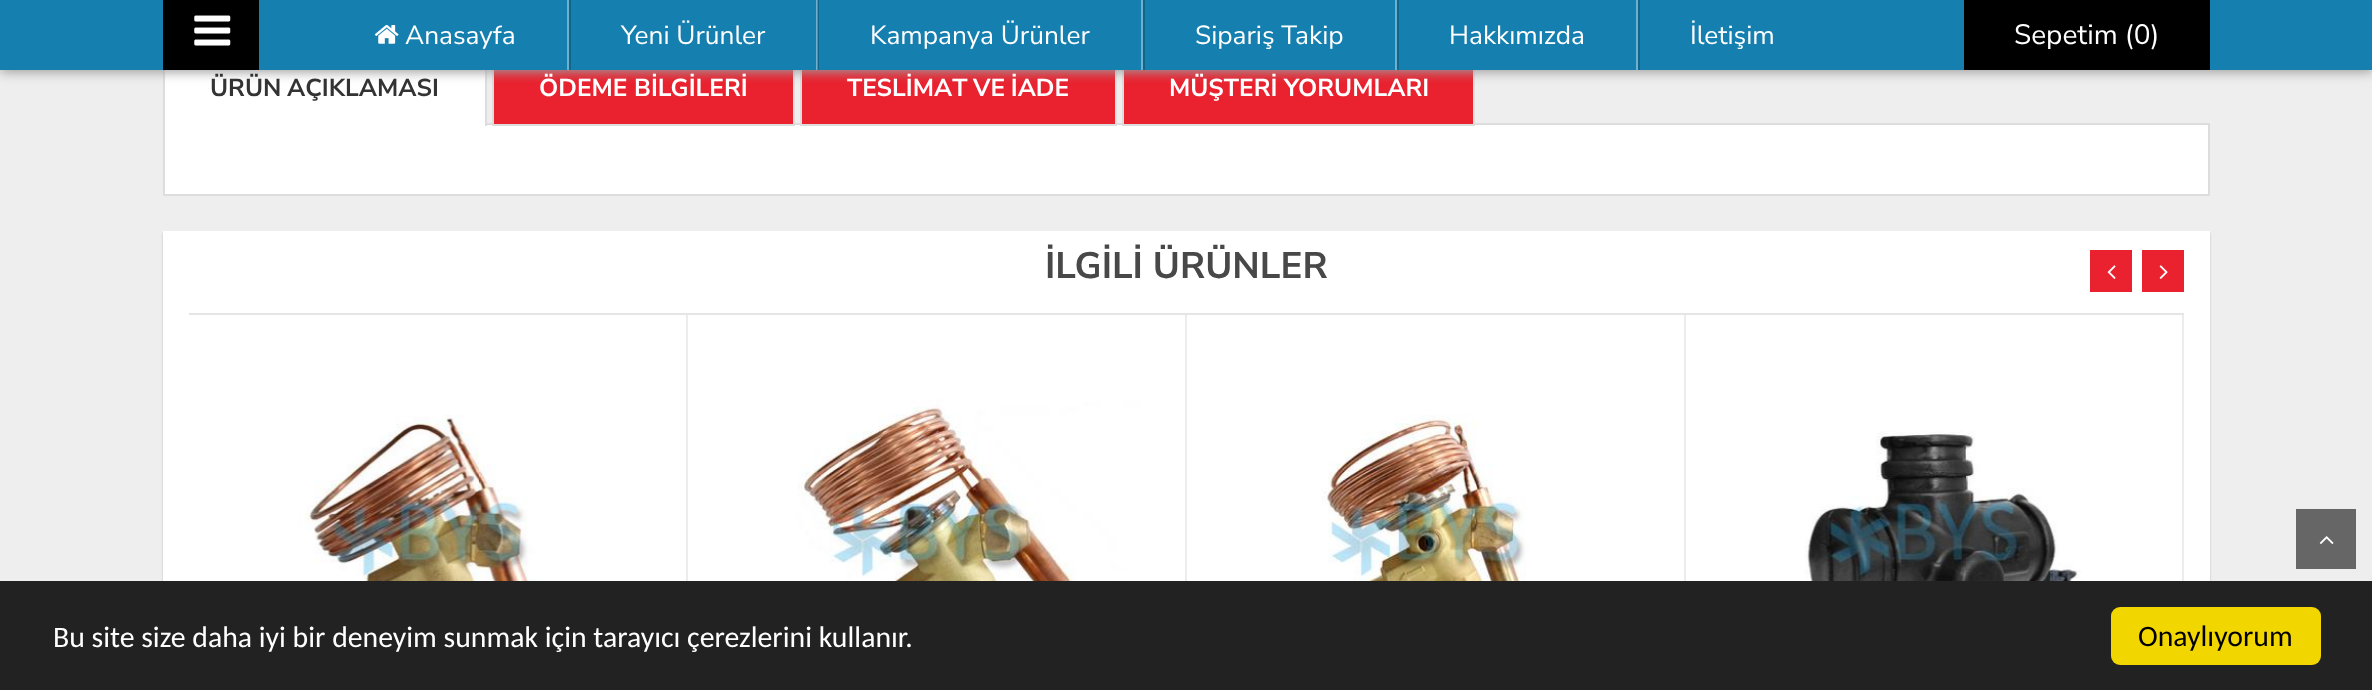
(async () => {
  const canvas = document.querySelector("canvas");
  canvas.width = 2372;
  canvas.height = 690;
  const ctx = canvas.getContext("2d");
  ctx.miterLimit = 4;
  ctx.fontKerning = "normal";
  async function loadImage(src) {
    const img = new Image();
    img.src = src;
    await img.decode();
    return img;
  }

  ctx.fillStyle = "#eeeeee";
  ctx.fillRect(0, 0, 2372, 690);
  ctx.fillStyle = "#ffffff";
  ctx.beginPath();
  ctx.rect(164, 124, 2045, 71);
  ctx.fill();
  ctx.strokeStyle = "#dddddd";
  ctx.lineWidth = 2;
  ctx.stroke();
  ctx.strokeRect(164, 50, 322, 75);
  ctx.fillRect(165, 70, 320, 56);
  ctx.fillStyle = "#ea222f";
  ctx.fillRect(494, 70, 299, 54);
  ctx.strokeRect(493, 50, 301, 75);
  ctx.fillRect(802, 70, 313, 54);
  ctx.strokeRect(801, 50, 315, 75);
  ctx.fillRect(1124, 70, 349, 54);
  ctx.strokeRect(1123, 50, 351, 75);
  ctx.fillStyle = "#9c9c9c";
  ctx.filter = "blur(6px)";
  ctx.beginPath();
  ctx.rect(0, 2, 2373, 70);
  ctx.fill();
  ctx.filter = "none";
  ctx.fillStyle = "#157faf";
  ctx.fillRect(0, 0, 2372, 70);
  ctx.fillStyle = "#000000";
  ctx.fillRect(163, 0, 96, 70);
  ctx.drawImage(await loadImage("img/1.png"), 194, 15, 37, 31);
  ctx.fillStyle = "#6eb0cd";
  ctx.fillRect(567, 0, 2, 70);
  ctx.drawImage(await loadImage("img/2.png"), 374, 25, 25, 19);
  for (const [x, y, w, h, color] of [
    [816, 0, 2, 70, "#6eb0cd"],
    [569, 0, 2, 70, "#11668c"],
    [1141, 0, 2, 70, "#6eb0cd"],
    [817, 0, 2, 70, "rgba(0, 0, 0, 0.2)"],
    [1395, 0, 2, 70, "#6eb0cd"],
    [1143, 0, 2, 70, "#11668c"],
    [1636, 0, 2, 70, "#6eb0cd"],
    [1397, 0, 2, 70, "#11668c"],
    [1638, 0, 2, 70, "#11668c"],
    [1964, 0, 246, 70, "#000000"],
  ]) {
    ctx.fillStyle = color;
    ctx.fillRect(x, y, w, h);
  }
  ctx.fillStyle = "rgba(0, 0, 0, 0.2)";
  ctx.filter = "blur(1px)";
  ctx.beginPath();
  ctx.rect(163, 233, 2047, 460);
  ctx.fill();
  ctx.filter = "none";
  for (const [x, y, w, h, color] of [
    [163, 231, 2047, 350, "#ffffff"],
    [189, 313, 1995, 2, "#e5e5e5"],
    [2090, 250, 42, 42, "#ea222f"],
  ]) {
    ctx.fillStyle = color;
    ctx.fillRect(x, y, w, h);
  }
  ctx.drawImage(await loadImage("img/3.png"), 2107, 265, 9, 14);
  ctx.fillRect(2142, 250, 42, 42);
  ctx.drawImage(await loadImage("img/4.png"), 2159, 265, 9, 14);
  ctx.fillStyle = "#ececec";
  ctx.fillRect(686, 315, 2, 266);
  ctx.drawImage(await loadImage("img/5.png"), 298, 415, 344, 166);
  ctx.fillRect(1185, 315, 2, 266);
  ctx.drawImage(await loadImage("img/6.png"), 797, 399, 344, 182);
  ctx.fillRect(1684, 315, 2, 266);
  ctx.drawImage(await loadImage("img/7.png"), 1322, 414, 318, 167);
  ctx.fillRect(2182, 315, 2, 266);
  ctx.drawImage(await loadImage("img/8.png"), 1805, 431, 333, 150);
  ctx.fillStyle = "#666666";
  ctx.fillRect(2296, 509, 60, 60);
  ctx.drawImage(await loadImage("img/9.png"), 2319, 536, 15, 8);
  ctx.fillStyle = "#222222";
  ctx.fillRect(0, 581, 2372, 109);
  ctx.fillStyle = "#f1d600";
  ctx.beginPath();
  ctx.roundRect(2111, 607, 210, 58, 9);
  ctx.fill();
  ctx.font = "26.25px Nunito Sans";
  ctx.fillStyle = "#ffffff";
  for (const [text, x, y] of [
    ["Anasayfa", 405, 44],
    ["Yeni Ürünler", 621, 44],
    ["Kampanya Ürünler", 870, 44],
    ["Sipariş Takip", 1195, 44],
    ["Hakkımızda", 1449, 44],
    ["İletişim", 1690, 44],
  ]) {
    ctx.fillText(text, x, y);
  }
  ctx.font = "28px Nunito Sans";
  ctx.fillText("Sepetim (0)", 2014, 44);
  ctx.wordSpacing = "-1px";
  ctx.font = "bold 24.5px Nunito Sans";
  ctx.fillStyle = "#333333";
  ctx.fillText("ÜRÜN AÇIKLAMASI", 210, 96);
  ctx.wordSpacing = "0px";
  ctx.fillStyle = "#ffffff";
  ctx.fillText("ÖDEME BİLGİLERİ", 539, 96);
  ctx.wordSpacing = "-1px";
  ctx.fillText("TESLİMAT VE İADE", 847, 96);
  ctx.wordSpacing = "0px";
  ctx.fillText("MÜŞTERİ YORUMLARI", 1169, 96);
  ctx.font = "bold 36.75px Nunito Sans";
  ctx.fillStyle = "#484848";
  ctx.fillText("İLGİLİ ÜRÜNLER", 1045, 278);
  ctx.font = "29.75px Carlito";
  ctx.fillStyle = "#ffffff";
  ctx.fillText("Bu site size daha iyi bir deneyim sunmak için tarayıcı çerezlerini kullanır.", 53, 647);
  ctx.fillStyle = "#000000";
  ctx.fillText("Onaylıyorum", 2138, 646);
})();
